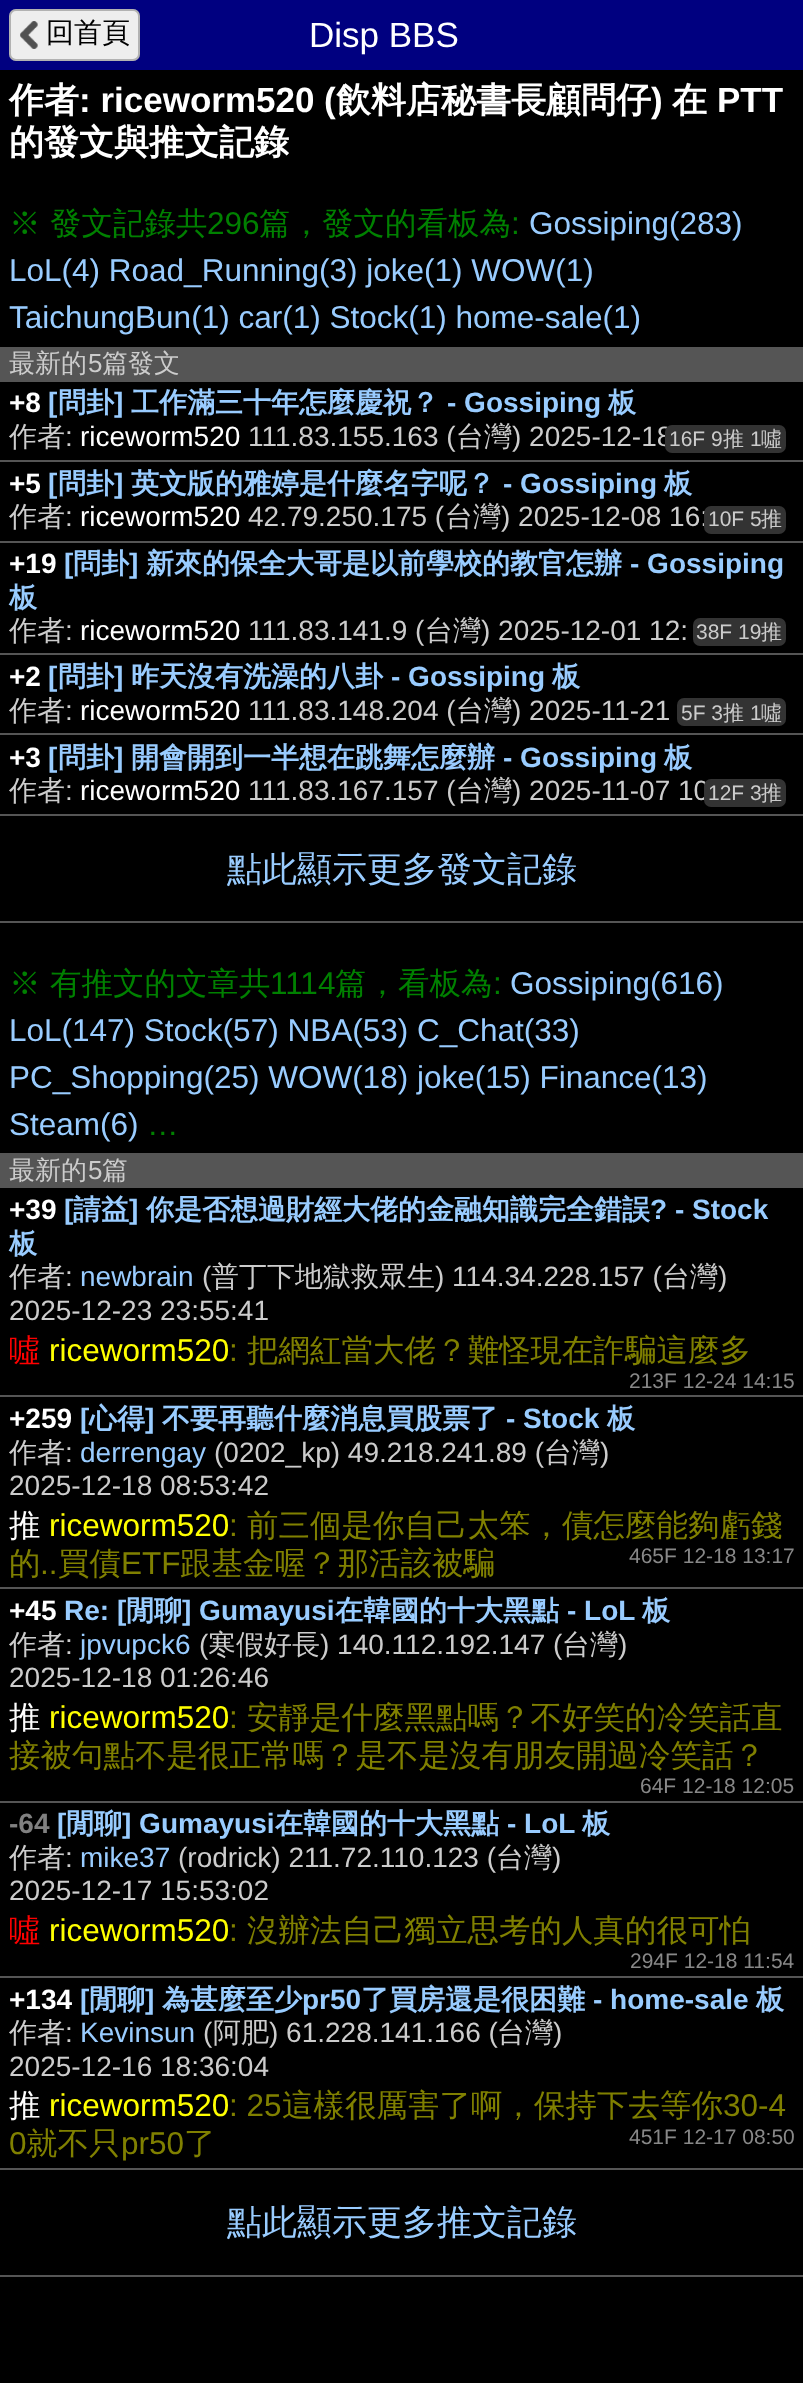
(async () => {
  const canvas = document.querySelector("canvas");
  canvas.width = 803;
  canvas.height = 2383;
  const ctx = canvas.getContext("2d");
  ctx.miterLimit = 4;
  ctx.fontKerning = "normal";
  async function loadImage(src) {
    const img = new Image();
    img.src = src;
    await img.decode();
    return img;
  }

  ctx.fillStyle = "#000000";
  ctx.fillRect(0, 0, 803, 2383);
  ctx.fillStyle = "#000080";
  ctx.fillRect(0, 0, 803, 70);
  ctx.fillStyle = "#eeeeee";
  ctx.beginPath();
  ctx.roundRect(9, 9, 131, 52, 7);
  ctx.fill();
  ctx.drawImage(await loadImage("img/1.png"), 20, 21, 18, 28);
  ctx.beginPath();
  ctx.roundRect(10, 10, 129, 50, 6);
  ctx.strokeStyle = "rgba(0, 0, 0, 0.25)";
  ctx.lineWidth = 2;
  ctx.stroke();
  for (const [x, y, w, h, color] of [
    [0, 347, 803, 35, "#555555"],
    [0, 460, 803, 2, "#555555"],
    [0, 541, 803, 2, "#555555"],
    [0, 653, 803, 2, "#555555"],
  ]) {
    ctx.fillStyle = color;
    ctx.fillRect(x, y, w, h);
  }
  ctx.fillStyle = "#333333";
  ctx.beginPath();
  ctx.roundRect(693, 618, 93, 28, 7);
  ctx.fill();
  ctx.fillStyle = "#555555";
  ctx.fillRect(0, 733, 803, 2);
  ctx.fillStyle = "#333333";
  ctx.beginPath();
  ctx.roundRect(677, 698, 109, 28, 7);
  ctx.fill();
  for (const [x, y, w, h, color] of [
    [0, 814, 803, 2, "#555555"],
    [0, 921, 803, 2, "#555555"],
    [0, 1153, 803, 35, "#555555"],
    [0, 1395, 803, 2, "#555555"],
    [0, 1587, 803, 2, "#555555"],
    [0, 1801, 803, 2, "#555555"],
    [0, 1976, 803, 2, "#555555"],
    [0, 2168, 803, 2, "#555555"],
    [0, 2275, 803, 2, "#555555"],
  ]) {
    ctx.fillStyle = color;
    ctx.fillRect(x, y, w, h);
  }
  ctx.font = "500 28px WenQuanYi Zen Hei";
  ctx.fillStyle = "#000000";
  ctx.fillText("回首頁", 46, 42);
  ctx.font = "35px Liberation Sans";
  ctx.fillStyle = "#ffffff";
  ctx.fillText("Disp BBS", 309, 47);
  ctx.font = "bold 35px WenQuanYi Zen Hei";
  ctx.fillText("作者", 9, 112);
  ctx.font = "bold 35px Liberation Sans";
  ctx.fillText(": riceworm520 (", 79, 112);
  ctx.font = "bold 35px WenQuanYi Zen Hei";
  ctx.fillText("飲料店秘書長顧問仔", 336, 112);
  ctx.font = "bold 35px Liberation Sans";
  ctx.fillText(")", 651, 112);
  ctx.font = "bold 35px WenQuanYi Zen Hei";
  ctx.fillText("在", 672, 112);
  ctx.font = "bold 35px Liberation Sans";
  ctx.fillText("PTT", 717, 112);
  ctx.font = "bold 35px WenQuanYi Zen Hei";
  ctx.fillText("的發文與推文記錄", 9, 154);
  ctx.font = "500 31.5px WenQuanYi Zen Hei";
  ctx.fillStyle = "#008000";
  ctx.fillText("※ 發文記錄共", 9, 234);
  ctx.font = "31.5px Liberation Sans";
  ctx.fillText("296", 207, 234);
  ctx.font = "500 31.5px WenQuanYi Zen Hei";
  ctx.fillText("篇，發文的看板為", 259, 234);
  ctx.font = "31.5px Liberation Sans";
  ctx.fillText(":", 511, 234);
  ctx.fillStyle = "#99ccff";
  for (const [text, x, y] of [
    ["Gossiping(283)", 529, 234],
    ["LoL(4) Road_Running(3) joke(1) WOW(1)", 9, 281],
    ["TaichungBun(1) car(1) Stock(1) home-sale(1)", 9, 328],
  ]) {
    ctx.fillText(text, x, y);
  }
  ctx.font = "500 26px WenQuanYi Zen Hei";
  ctx.fillStyle = "#cccccc";
  ctx.fillText("最新的", 9, 372);
  ctx.font = "26px Liberation Sans";
  ctx.fillText("5", 88, 372);
  ctx.font = "500 26px WenQuanYi Zen Hei";
  ctx.fillText("篇發文", 102, 372);
  ctx.font = "bold 28px Liberation Sans";
  ctx.fillStyle = "#ffffff";
  ctx.fillText("+8", 9, 412);
  ctx.fillStyle = "#99ccff";
  ctx.fillText("[", 48, 412);
  ctx.font = "bold 28px WenQuanYi Zen Hei";
  ctx.fillText("問卦", 58, 412);
  ctx.font = "bold 28px Liberation Sans";
  ctx.fillText("]", 114, 412);
  ctx.font = "bold 28px WenQuanYi Zen Hei";
  ctx.fillText("工作滿三十年怎麼慶祝？", 131, 412);
  ctx.font = "bold 28px Liberation Sans";
  ctx.fillText("- Gossiping", 447, 412);
  ctx.font = "bold 28px WenQuanYi Zen Hei";
  ctx.fillText("板", 608, 412);
  ctx.font = "500 28px WenQuanYi Zen Hei";
  ctx.fillStyle = "#cccccc";
  ctx.fillText("作者", 9, 446);
  ctx.font = "28px Liberation Sans";
  ctx.fillText(":", 65, 446);
  ctx.fillStyle = "#ffffff";
  ctx.fillText("riceworm520", 80, 446);
  ctx.fillStyle = "#cccccc";
  ctx.fillText("111.83.155.163 (", 248, 446);
  ctx.font = "500 28px WenQuanYi Zen Hei";
  ctx.fillText("台灣", 456, 446);
  ctx.font = "28px Liberation Sans";
  ctx.fillText(") 2025-12-18", 512, 446);
  ctx.fillStyle = "#333333";
  ctx.beginPath();
  ctx.roundRect(665, 425, 121, 28, 7);
  ctx.fill();
  ctx.font = "21px Liberation Sans";
  ctx.fillStyle = "#cccccc";
  ctx.fillText("16F 9", 669, 446);
  ctx.font = "500 21px WenQuanYi Zen Hei";
  ctx.fillText("推", 723, 446);
  ctx.font = "21px Liberation Sans";
  ctx.fillText("1", 750, 446);
  ctx.font = "500 21px WenQuanYi Zen Hei";
  ctx.fillText("噓", 761, 446);
  ctx.font = "bold 28px Liberation Sans";
  ctx.fillStyle = "#ffffff";
  ctx.fillText("+5", 9, 493);
  ctx.fillStyle = "#99ccff";
  ctx.fillText("[", 48, 493);
  ctx.font = "bold 28px WenQuanYi Zen Hei";
  ctx.fillText("問卦", 58, 493);
  ctx.font = "bold 28px Liberation Sans";
  ctx.fillText("]", 114, 493);
  ctx.font = "bold 28px WenQuanYi Zen Hei";
  ctx.fillText("英文版的雅婷是什麼名字呢？", 131, 493);
  ctx.font = "bold 28px Liberation Sans";
  ctx.fillText("- Gossiping", 503, 493);
  ctx.font = "bold 28px WenQuanYi Zen Hei";
  ctx.fillText("板", 664, 493);
  ctx.font = "500 28px WenQuanYi Zen Hei";
  ctx.fillStyle = "#cccccc";
  ctx.fillText("作者", 9, 526);
  ctx.font = "28px Liberation Sans";
  ctx.fillText(":", 65, 526);
  ctx.fillStyle = "#ffffff";
  ctx.fillText("riceworm520", 80, 526);
  ctx.fillStyle = "#cccccc";
  ctx.fillText("42.79.250.175 (", 248, 526);
  ctx.font = "500 28px WenQuanYi Zen Hei";
  ctx.fillText("台灣", 445, 526);
  ctx.font = "28px Liberation Sans";
  ctx.fillText(") 2025-12-08 16:", 501, 526);
  ctx.fillStyle = "#333333";
  ctx.beginPath();
  ctx.roundRect(704, 506, 82, 28, 7);
  ctx.fill();
  ctx.font = "21px Liberation Sans";
  ctx.fillStyle = "#cccccc";
  ctx.fillText("10F 5", 708, 526);
  ctx.font = "500 21px WenQuanYi Zen Hei";
  ctx.fillText("推", 761, 526);
  ctx.font = "bold 28px Liberation Sans";
  ctx.fillStyle = "#ffffff";
  ctx.fillText("+19", 9, 573);
  ctx.fillStyle = "#99ccff";
  ctx.fillText("[", 64, 573);
  ctx.font = "bold 28px WenQuanYi Zen Hei";
  ctx.fillText("問卦", 73, 573);
  ctx.font = "bold 28px Liberation Sans";
  ctx.fillText("]", 129, 573);
  ctx.font = "bold 28px WenQuanYi Zen Hei";
  ctx.fillText("新來的保全大哥是以前學校的教官怎辦", 146, 573);
  ctx.font = "bold 28px Liberation Sans";
  ctx.fillText("- Gossiping", 630, 573);
  ctx.font = "bold 28px WenQuanYi Zen Hei";
  ctx.fillText("板", 9, 607);
  ctx.font = "500 28px WenQuanYi Zen Hei";
  ctx.fillStyle = "#cccccc";
  ctx.fillText("作者", 9, 640);
  ctx.font = "28px Liberation Sans";
  ctx.fillText(":", 65, 640);
  ctx.fillStyle = "#ffffff";
  ctx.fillText("riceworm520", 80, 640);
  ctx.fillStyle = "#cccccc";
  ctx.fillText("111.83.141.9 (", 248, 640);
  ctx.font = "500 28px WenQuanYi Zen Hei";
  ctx.fillText("台灣", 425, 640);
  ctx.font = "28px Liberation Sans";
  ctx.fillText(") 2025-12-01 12:", 481, 640);
  ctx.font = "21px Liberation Sans";
  ctx.fillText("38F 19", 696, 639);
  ctx.font = "500 21px WenQuanYi Zen Hei";
  ctx.fillText("推", 761, 639);
  ctx.font = "bold 28px Liberation Sans";
  ctx.fillStyle = "#ffffff";
  ctx.fillText("+2", 9, 686);
  ctx.fillStyle = "#99ccff";
  ctx.fillText("[", 48, 686);
  ctx.font = "bold 28px WenQuanYi Zen Hei";
  ctx.fillText("問卦", 58, 686);
  ctx.font = "bold 28px Liberation Sans";
  ctx.fillText("]", 114, 686);
  ctx.font = "bold 28px WenQuanYi Zen Hei";
  ctx.fillText("昨天沒有洗澡的八卦", 131, 686);
  ctx.font = "bold 28px Liberation Sans";
  ctx.fillText("- Gossiping", 391, 686);
  ctx.font = "bold 28px WenQuanYi Zen Hei";
  ctx.fillText("板", 552, 686);
  ctx.font = "500 28px WenQuanYi Zen Hei";
  ctx.fillStyle = "#cccccc";
  ctx.fillText("作者", 9, 720);
  ctx.font = "28px Liberation Sans";
  ctx.fillText(":", 65, 720);
  ctx.fillStyle = "#ffffff";
  ctx.fillText("riceworm520", 80, 720);
  ctx.fillStyle = "#cccccc";
  ctx.fillText("111.83.148.204 (", 248, 720);
  ctx.font = "500 28px WenQuanYi Zen Hei";
  ctx.fillText("台灣", 456, 720);
  ctx.font = "28px Liberation Sans";
  ctx.fillText(") 2025-11-21", 512, 720);
  ctx.font = "21px Liberation Sans";
  ctx.fillText("5F 3", 681, 720);
  ctx.font = "500 21px WenQuanYi Zen Hei";
  ctx.fillText("推", 723, 720);
  ctx.font = "21px Liberation Sans";
  ctx.fillText("1", 750, 720);
  ctx.font = "500 21px WenQuanYi Zen Hei";
  ctx.fillText("噓", 761, 720);
  ctx.font = "bold 28px Liberation Sans";
  ctx.fillStyle = "#ffffff";
  ctx.fillText("+3", 9, 767);
  ctx.fillStyle = "#99ccff";
  ctx.fillText("[", 48, 767);
  ctx.font = "bold 28px WenQuanYi Zen Hei";
  ctx.fillText("問卦", 58, 767);
  ctx.font = "bold 28px Liberation Sans";
  ctx.fillText("]", 114, 767);
  ctx.font = "bold 28px WenQuanYi Zen Hei";
  ctx.fillText("開會開到一半想在跳舞怎麼辦", 131, 767);
  ctx.font = "bold 28px Liberation Sans";
  ctx.fillText("- Gossiping", 503, 767);
  ctx.font = "bold 28px WenQuanYi Zen Hei";
  ctx.fillText("板", 664, 767);
  ctx.font = "500 28px WenQuanYi Zen Hei";
  ctx.fillStyle = "#cccccc";
  ctx.fillText("作者", 9, 800);
  ctx.font = "28px Liberation Sans";
  ctx.fillText(":", 65, 800);
  ctx.fillStyle = "#ffffff";
  ctx.fillText("riceworm520", 80, 800);
  ctx.fillStyle = "#cccccc";
  ctx.fillText("111.83.167.157 (", 248, 800);
  ctx.font = "500 28px WenQuanYi Zen Hei";
  ctx.fillText("台灣", 456, 800);
  ctx.font = "28px Liberation Sans";
  ctx.fillText(") 2025-11-07 10", 512, 800);
  ctx.fillStyle = "#333333";
  ctx.beginPath();
  ctx.roundRect(704, 779, 82, 28, 7);
  ctx.fill();
  ctx.font = "21px Liberation Sans";
  ctx.fillStyle = "#cccccc";
  ctx.fillText("12F 3", 708, 800);
  ctx.font = "500 21px WenQuanYi Zen Hei";
  ctx.fillText("推", 761, 800);
  ctx.font = "500 35px WenQuanYi Zen Hei";
  ctx.fillStyle = "#99ccff";
  ctx.fillText("點此顯示更多發文記錄", 227, 881);
  ctx.font = "500 31.5px WenQuanYi Zen Hei";
  ctx.fillStyle = "#008000";
  ctx.fillText("※ 有推文的文章共", 9, 994);
  ctx.font = "31.5px Liberation Sans";
  ctx.fillText("1114", 270, 994);
  ctx.font = "500 31.5px WenQuanYi Zen Hei";
  ctx.fillText("篇，看板為", 335, 994);
  ctx.font = "31.5px Liberation Sans";
  ctx.fillText(":", 493, 994);
  ctx.fillStyle = "#99ccff";
  for (const [text, x, y] of [
    ["Gossiping(616)", 510, 994],
    ["LoL(147) Stock(57) NBA(53) C_Chat(33)", 9, 1041],
    ["PC_Shopping(25) WOW(18) joke(15) Finance(13)", 9, 1088],
    ["Steam(6)", 9, 1135],
  ]) {
    ctx.fillText(text, x, y);
  }
  ctx.fillStyle = "#008000";
  ctx.fillText("…", 147, 1135);
  ctx.font = "500 26px WenQuanYi Zen Hei";
  ctx.fillStyle = "#cccccc";
  ctx.fillText("最新的", 9, 1179);
  ctx.font = "26px Liberation Sans";
  ctx.fillText("5", 88, 1179);
  ctx.font = "500 26px WenQuanYi Zen Hei";
  ctx.fillText("篇", 102, 1179);
  ctx.font = "bold 28px Liberation Sans";
  ctx.fillStyle = "#ffffff";
  ctx.fillText("+39", 9, 1219);
  ctx.fillStyle = "#99ccff";
  ctx.fillText("[", 64, 1219);
  ctx.font = "bold 28px WenQuanYi Zen Hei";
  ctx.fillText("請益", 73, 1219);
  ctx.font = "bold 28px Liberation Sans";
  ctx.fillText("]", 129, 1219);
  ctx.font = "bold 28px WenQuanYi Zen Hei";
  ctx.fillText("你是否想過財經大佬的金融知識完全錯誤", 146, 1219);
  ctx.font = "bold 28px Liberation Sans";
  ctx.fillText("? - Stock", 650, 1219);
  ctx.font = "bold 28px WenQuanYi Zen Hei";
  ctx.fillText("板", 9, 1253);
  ctx.font = "500 28px WenQuanYi Zen Hei";
  ctx.fillStyle = "#cccccc";
  ctx.fillText("作者", 9, 1286);
  ctx.font = "28px Liberation Sans";
  ctx.fillText(":", 65, 1286);
  ctx.fillStyle = "#99ccff";
  ctx.fillText("newbrain", 80, 1286);
  ctx.fillStyle = "#cccccc";
  ctx.fillText("(", 202, 1286);
  ctx.font = "500 28px WenQuanYi Zen Hei";
  ctx.fillText("普丁下地獄救眾生", 211, 1286);
  ctx.font = "28px Liberation Sans";
  ctx.fillText(") 114.34.228.157 (", 435, 1286);
  ctx.font = "500 28px WenQuanYi Zen Hei";
  ctx.fillText("台灣", 662, 1286);
  ctx.font = "28px Liberation Sans";
  ctx.fillText(")", 718, 1286);
  ctx.fillText("2025-12-23 23:55:41", 9, 1320);
  ctx.font = "500 31.5px WenQuanYi Zen Hei";
  ctx.fillStyle = "#ff0000";
  ctx.fillText("噓", 9, 1361);
  ctx.font = "31.5px Liberation Sans";
  ctx.fillStyle = "#ffff00";
  ctx.fillText("riceworm520", 49, 1361);
  ctx.fillStyle = "#808000";
  ctx.fillText(":", 229, 1361);
  ctx.font = "500 31.5px WenQuanYi Zen Hei";
  ctx.fillText("把網紅當大佬？難怪現在詐騙這麼多", 247, 1361);
  ctx.font = "21px Liberation Sans";
  ctx.fillStyle = "#888888";
  ctx.fillText("213F 12-24 14:15", 629, 1388);
  ctx.font = "bold 28px Liberation Sans";
  ctx.fillStyle = "#ffffff";
  ctx.fillText("+259", 9, 1428);
  ctx.fillStyle = "#99ccff";
  ctx.fillText("[", 80, 1428);
  ctx.font = "bold 28px WenQuanYi Zen Hei";
  ctx.fillText("心得", 89, 1428);
  ctx.font = "bold 28px Liberation Sans";
  ctx.fillText("]", 145, 1428);
  ctx.font = "bold 28px WenQuanYi Zen Hei";
  ctx.fillText("不要再聽什麼消息買股票了", 162, 1428);
  ctx.font = "bold 28px Liberation Sans";
  ctx.fillText("- Stock", 506, 1428);
  ctx.font = "bold 28px WenQuanYi Zen Hei";
  ctx.fillText("板", 607, 1428);
  ctx.font = "500 28px WenQuanYi Zen Hei";
  ctx.fillStyle = "#cccccc";
  ctx.fillText("作者", 9, 1462);
  ctx.font = "28px Liberation Sans";
  ctx.fillText(":", 65, 1462);
  ctx.fillStyle = "#99ccff";
  ctx.fillText("derrengay", 80, 1462);
  ctx.fillStyle = "#cccccc";
  ctx.fillText("(0202_kp) 49.218.241.89 (", 214, 1462);
  ctx.font = "500 28px WenQuanYi Zen Hei";
  ctx.fillText("台灣", 544, 1462);
  ctx.font = "28px Liberation Sans";
  ctx.fillText(")", 600, 1462);
  ctx.fillText("2025-12-18 08:53:42", 9, 1495);
  ctx.font = "500 31.5px WenQuanYi Zen Hei";
  ctx.fillStyle = "#ffffff";
  ctx.fillText("推", 9, 1536);
  ctx.font = "31.5px Liberation Sans";
  ctx.fillStyle = "#ffff00";
  ctx.fillText("riceworm520", 49, 1536);
  ctx.fillStyle = "#808000";
  ctx.fillText(":", 229, 1536);
  ctx.font = "500 31.5px WenQuanYi Zen Hei";
  ctx.fillText("前三個是你自己太笨，債怎麼能夠虧錢", 247, 1536);
  ctx.fillText("的", 9, 1574);
  ctx.font = "31.5px Liberation Sans";
  ctx.fillText("..", 40, 1574);
  ctx.font = "500 31.5px WenQuanYi Zen Hei";
  ctx.fillText("買債", 58, 1574);
  ctx.font = "31.5px Liberation Sans";
  ctx.fillText("ETF", 121, 1574);
  ctx.font = "500 31.5px WenQuanYi Zen Hei";
  ctx.fillText("跟基金喔？那活該被騙", 180, 1574);
  ctx.font = "21px Liberation Sans";
  ctx.fillStyle = "#888888";
  ctx.fillText("465F 12-18 13:17", 629, 1563);
  ctx.font = "bold 28px Liberation Sans";
  ctx.fillStyle = "#ffffff";
  ctx.fillText("+45", 9, 1620);
  ctx.fillStyle = "#99ccff";
  ctx.fillText("Re: [", 64, 1620);
  ctx.font = "bold 28px WenQuanYi Zen Hei";
  ctx.fillText("閒聊", 126, 1620);
  ctx.font = "bold 28px Liberation Sans";
  ctx.fillText("] Gumayusi", 182, 1620);
  ctx.font = "bold 28px WenQuanYi Zen Hei";
  ctx.fillText("在韓國的十大黑點", 335, 1620);
  ctx.font = "bold 28px Liberation Sans";
  ctx.fillText("- LoL", 567, 1620);
  ctx.font = "bold 28px WenQuanYi Zen Hei";
  ctx.fillText("板", 642, 1620);
  ctx.font = "500 28px WenQuanYi Zen Hei";
  ctx.fillStyle = "#cccccc";
  ctx.fillText("作者", 9, 1654);
  ctx.font = "28px Liberation Sans";
  ctx.fillText(":", 65, 1654);
  ctx.fillStyle = "#99ccff";
  ctx.fillText("jpvupck6", 80, 1654);
  ctx.fillStyle = "#cccccc";
  ctx.fillText("(", 199, 1654);
  ctx.font = "500 28px WenQuanYi Zen Hei";
  ctx.fillText("寒假好長", 208, 1654);
  ctx.font = "28px Liberation Sans";
  ctx.fillText(") 140.112.192.147 (", 320, 1654);
  ctx.font = "500 28px WenQuanYi Zen Hei";
  ctx.fillText("台灣", 562, 1654);
  ctx.font = "28px Liberation Sans";
  ctx.fillText(")", 618, 1654);
  ctx.fillText("2025-12-18 01:26:46", 9, 1687);
  ctx.font = "500 31.5px WenQuanYi Zen Hei";
  ctx.fillStyle = "#ffffff";
  ctx.fillText("推", 9, 1728);
  ctx.font = "31.5px Liberation Sans";
  ctx.fillStyle = "#ffff00";
  ctx.fillText("riceworm520", 49, 1728);
  ctx.fillStyle = "#808000";
  ctx.fillText(":", 229, 1728);
  ctx.font = "500 31.5px WenQuanYi Zen Hei";
  ctx.fillText("安靜是什麼黑點嗎？不好笑的冷笑話直", 247, 1728);
  ctx.fillText("接被句點不是很正常嗎？是不是沒有朋友開過冷笑話？", 9, 1766);
  ctx.font = "21px Liberation Sans";
  ctx.fillStyle = "#888888";
  ctx.fillText("64F 12-18 12:05", 640, 1793);
  ctx.font = "bold 28px Liberation Sans";
  ctx.fillStyle = "#808080";
  ctx.fillText("-64", 9, 1833);
  ctx.fillStyle = "#99ccff";
  ctx.fillText("[", 57, 1833);
  ctx.font = "bold 28px WenQuanYi Zen Hei";
  ctx.fillText("閒聊", 66, 1833);
  ctx.font = "bold 28px Liberation Sans";
  ctx.fillText("] Gumayusi", 122, 1833);
  ctx.font = "bold 28px WenQuanYi Zen Hei";
  ctx.fillText("在韓國的十大黑點", 275, 1833);
  ctx.font = "bold 28px Liberation Sans";
  ctx.fillText("- LoL", 507, 1833);
  ctx.font = "bold 28px WenQuanYi Zen Hei";
  ctx.fillText("板", 582, 1833);
  ctx.font = "500 28px WenQuanYi Zen Hei";
  ctx.fillStyle = "#cccccc";
  ctx.fillText("作者", 9, 1867);
  ctx.font = "28px Liberation Sans";
  ctx.fillText(":", 65, 1867);
  ctx.fillStyle = "#99ccff";
  ctx.fillText("mike37", 80, 1867);
  ctx.fillStyle = "#cccccc";
  ctx.fillText("(rodrick) 211.72.110.123 (", 178, 1867);
  ctx.font = "500 28px WenQuanYi Zen Hei";
  ctx.fillText("台灣", 496, 1867);
  ctx.font = "28px Liberation Sans";
  ctx.fillText(")", 552, 1867);
  ctx.fillText("2025-12-17 15:53:02", 9, 1900);
  ctx.font = "500 31.5px WenQuanYi Zen Hei";
  ctx.fillStyle = "#ff0000";
  ctx.fillText("噓", 9, 1941);
  ctx.font = "31.5px Liberation Sans";
  ctx.fillStyle = "#ffff00";
  ctx.fillText("riceworm520", 49, 1941);
  ctx.fillStyle = "#808000";
  ctx.fillText(":", 229, 1941);
  ctx.font = "500 31.5px WenQuanYi Zen Hei";
  ctx.fillText("沒辦法自己獨立思考的人真的很可怕", 247, 1941);
  ctx.font = "21px Liberation Sans";
  ctx.fillStyle = "#888888";
  ctx.fillText("294F 12-18 11:54", 630, 1968);
  ctx.font = "bold 28px Liberation Sans";
  ctx.fillStyle = "#ffffff";
  ctx.fillText("+134", 9, 2009);
  ctx.fillStyle = "#99ccff";
  ctx.fillText("[", 80, 2009);
  ctx.font = "bold 28px WenQuanYi Zen Hei";
  ctx.fillText("閒聊", 89, 2009);
  ctx.font = "bold 28px Liberation Sans";
  ctx.fillText("]", 145, 2009);
  ctx.font = "bold 28px WenQuanYi Zen Hei";
  ctx.fillText("為甚麼至少", 162, 2009);
  ctx.font = "bold 28px Liberation Sans";
  ctx.fillText("pr50", 302, 2009);
  ctx.font = "bold 28px WenQuanYi Zen Hei";
  ctx.fillText("了買房還是很困難", 361, 2009);
  ctx.font = "bold 28px Liberation Sans";
  ctx.fillText("- home-sale", 593, 2009);
  ctx.font = "bold 28px WenQuanYi Zen Hei";
  ctx.fillText("板", 756, 2009);
  ctx.font = "500 28px WenQuanYi Zen Hei";
  ctx.fillStyle = "#cccccc";
  ctx.fillText("作者", 9, 2042);
  ctx.font = "28px Liberation Sans";
  ctx.fillText(":", 65, 2042);
  ctx.fillStyle = "#99ccff";
  ctx.fillText("Kevinsun", 80, 2042);
  ctx.fillStyle = "#cccccc";
  ctx.fillText("(", 203, 2042);
  ctx.font = "500 28px WenQuanYi Zen Hei";
  ctx.fillText("阿肥", 213, 2042);
  ctx.font = "28px Liberation Sans";
  ctx.fillText(") 61.228.141.166 (", 269, 2042);
  ctx.font = "500 28px WenQuanYi Zen Hei";
  ctx.fillText("台灣", 497, 2042);
  ctx.font = "28px Liberation Sans";
  ctx.fillText(")", 553, 2042);
  ctx.fillText("2025-12-16 18:36:04", 9, 2076);
  ctx.font = "500 31.5px WenQuanYi Zen Hei";
  ctx.fillStyle = "#ffffff";
  ctx.fillText("推", 9, 2116);
  ctx.font = "31.5px Liberation Sans";
  ctx.fillStyle = "#ffff00";
  ctx.fillText("riceworm520", 49, 2116);
  ctx.fillStyle = "#808000";
  ctx.fillText(": 25", 229, 2116);
  ctx.font = "500 31.5px WenQuanYi Zen Hei";
  ctx.fillText("這樣很厲害了啊，保持下去等你", 282, 2116);
  ctx.font = "31.5px Liberation Sans";
  ctx.fillText("30-4", 723, 2116);
  ctx.fillText("0", 9, 2154);
  ctx.font = "500 31.5px WenQuanYi Zen Hei";
  ctx.fillText("就不只", 26, 2154);
  ctx.font = "31.5px Liberation Sans";
  ctx.fillText("pr50", 121, 2154);
  ctx.font = "500 31.5px WenQuanYi Zen Hei";
  ctx.fillText("了", 184, 2154);
  ctx.font = "21px Liberation Sans";
  ctx.fillStyle = "#888888";
  ctx.fillText("451F 12-17 08:50", 629, 2144);
  ctx.font = "500 35px WenQuanYi Zen Hei";
  ctx.fillStyle = "#99ccff";
  ctx.fillText("點此顯示更多推文記錄", 227, 2234);
})();
